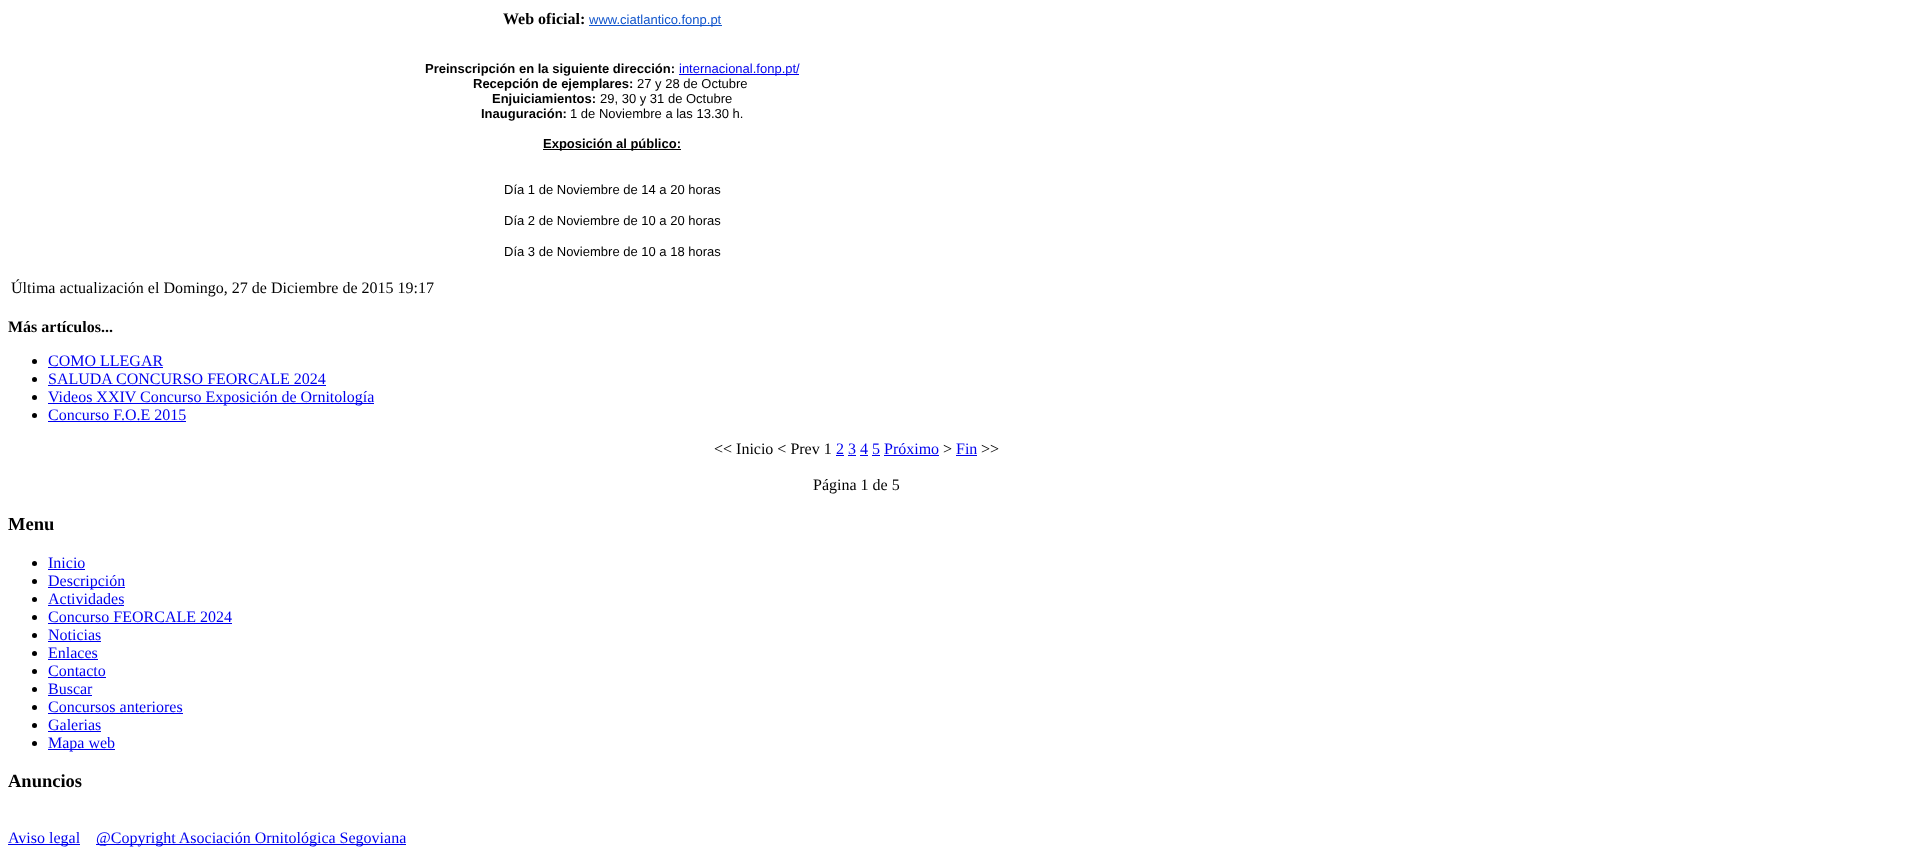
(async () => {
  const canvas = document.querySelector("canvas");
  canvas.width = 1922;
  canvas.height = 855;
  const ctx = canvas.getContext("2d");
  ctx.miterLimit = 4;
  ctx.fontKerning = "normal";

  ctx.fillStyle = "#ffffff";
  ctx.fillRect(0, 0, 1922, 855);
  for (const [x, y, w, h, color] of [
    [589, 25, 133, 1, "#1155cc"],
    [679, 74, 120, 1, "#0000ee"],
    [543, 149, 138, 1, "#000000"],
  ]) {
    ctx.fillStyle = color;
    ctx.fillRect(x, y, w, h);
  }
  ctx.beginPath();
  ctx.arc(34.5, 361.5, 2.5, 0, Math.PI * 2);
  ctx.fill();
  ctx.fillStyle = "#0000ee";
  ctx.fillRect(48, 367, 115, 1);
  ctx.fillStyle = "#000000";
  ctx.beginPath();
  ctx.arc(34.5, 379.5, 2.5, 0, Math.PI * 2);
  ctx.fill();
  ctx.fillStyle = "#0000ee";
  ctx.fillRect(48, 385, 278, 1);
  ctx.fillStyle = "#000000";
  ctx.beginPath();
  ctx.arc(34.5, 397.5, 2.5, 0, Math.PI * 2);
  ctx.fill();
  ctx.fillStyle = "#0000ee";
  ctx.fillRect(48, 403, 326, 1);
  ctx.fillStyle = "#000000";
  ctx.beginPath();
  ctx.arc(34.5, 415.5, 2.5, 0, Math.PI * 2);
  ctx.fill();
  for (const [x, y, w, h, color] of [
    [48, 421, 138, 1, "#0000ee"],
    [836, 455, 8, 1, "#0000ee"],
    [956, 455, 21, 1, "#0000ee"],
    [848, 455, 8, 1, "#0000ee"],
    [860, 455, 8, 1, "#0000ee"],
    [872, 455, 8, 1, "#0000ee"],
    [884, 455, 55, 1, "#0000ee"],
  ]) {
    ctx.fillStyle = color;
    ctx.fillRect(x, y, w, h);
  }
  ctx.fillStyle = "#000000";
  ctx.beginPath();
  ctx.arc(34.5, 563.5, 2.5, 0, Math.PI * 2);
  ctx.fill();
  ctx.fillStyle = "#0000ee";
  ctx.fillRect(48, 569, 37, 1);
  ctx.fillStyle = "#000000";
  ctx.beginPath();
  ctx.arc(34.5, 581.5, 2.5, 0, Math.PI * 2);
  ctx.fill();
  ctx.fillStyle = "#0000ee";
  ctx.fillRect(48, 587, 77, 1);
  ctx.fillStyle = "#000000";
  ctx.beginPath();
  ctx.arc(34.5, 599.5, 2.5, 0, Math.PI * 2);
  ctx.fill();
  ctx.fillStyle = "#0000ee";
  ctx.fillRect(48, 605, 76, 1);
  ctx.fillStyle = "#000000";
  ctx.beginPath();
  ctx.arc(34.5, 617.5, 2.5, 0, Math.PI * 2);
  ctx.fill();
  ctx.fillStyle = "#0000ee";
  ctx.fillRect(48, 623, 184, 1);
  ctx.fillStyle = "#000000";
  ctx.beginPath();
  ctx.arc(34.5, 635.5, 2.5, 0, Math.PI * 2);
  ctx.fill();
  ctx.fillStyle = "#0000ee";
  ctx.fillRect(48, 641, 53, 1);
  ctx.fillStyle = "#000000";
  ctx.beginPath();
  ctx.arc(34.5, 653.5, 2.5, 0, Math.PI * 2);
  ctx.fill();
  ctx.fillStyle = "#0000ee";
  ctx.fillRect(48, 659, 50, 1);
  ctx.fillStyle = "#000000";
  ctx.beginPath();
  ctx.arc(34.5, 671.5, 2.5, 0, Math.PI * 2);
  ctx.fill();
  ctx.fillStyle = "#0000ee";
  ctx.fillRect(48, 677, 58, 1);
  ctx.fillStyle = "#000000";
  ctx.beginPath();
  ctx.arc(34.5, 689.5, 2.5, 0, Math.PI * 2);
  ctx.fill();
  ctx.fillStyle = "#0000ee";
  ctx.fillRect(48, 695, 44, 1);
  ctx.fillStyle = "#000000";
  ctx.beginPath();
  ctx.arc(34.5, 707.5, 2.5, 0, Math.PI * 2);
  ctx.fill();
  ctx.fillStyle = "#0000ee";
  ctx.fillRect(48, 713, 135, 1);
  ctx.fillStyle = "#000000";
  ctx.beginPath();
  ctx.arc(34.5, 725.5, 2.5, 0, Math.PI * 2);
  ctx.fill();
  ctx.fillStyle = "#0000ee";
  ctx.fillRect(48, 731, 53, 1);
  ctx.fillStyle = "#000000";
  ctx.beginPath();
  ctx.arc(34.5, 743.5, 2.5, 0, Math.PI * 2);
  ctx.fill();
  for (const [x, y, w, h, color] of [
    [48, 749, 67, 1, "#0000ee"],
    [8, 844, 72, 1, "#0000ee"],
    [96, 844, 310, 1, "#0000ee"],
  ]) {
    ctx.fillStyle = color;
    ctx.fillRect(x, y, w, h);
  }
  ctx.font = "bold 16px Liberation Serif";
  ctx.fillStyle = "#000000";
  ctx.fillText("Web oficial:", 503, 24);
  ctx.font = "13px Liberation Sans";
  ctx.fillStyle = "#1155cc";
  ctx.fillText("www.ciatlantico.fonp.pt", 589, 24);
  ctx.font = "bold 13px Liberation Sans";
  ctx.fillStyle = "#000000";
  ctx.fillText("Preinscripción en la siguiente dirección:", 425, 73);
  ctx.font = "13px Liberation Sans";
  ctx.fillStyle = "#0000ee";
  ctx.fillText("internacional.fonp.pt/", 679, 73);
  ctx.font = "bold 13px Liberation Sans";
  ctx.fillStyle = "#000000";
  ctx.fillText("Recepción de ejemplares:", 473, 88);
  ctx.font = "13px Liberation Sans";
  ctx.fillText("27 y 28 de Octubre", 637, 88);
  ctx.font = "bold 13px Liberation Sans";
  ctx.fillText("Enjuiciamientos:", 492, 103);
  ctx.font = "13px Liberation Sans";
  ctx.fillText("29, 30 y 31 de Octubre", 600, 103);
  ctx.font = "bold 13px Liberation Sans";
  ctx.fillText("Inauguración:", 481, 118);
  ctx.font = "13px Liberation Sans";
  ctx.fillText("1 de Noviembre a las 13.30 h.", 570, 118);
  ctx.font = "bold 13px Liberation Sans";
  ctx.fillText("Exposición al público:", 543, 148);
  ctx.font = "13px Liberation Sans";
  for (const [text, x, y] of [
    ["Día 1 de Noviembre de 14 a 20 horas", 504, 194],
    ["Día 2 de Noviembre de 10 a 20 horas", 504, 225],
    ["Día 3 de Noviembre de 10 a 18 horas", 504, 256],
  ]) {
    ctx.fillText(text, x, y);
  }
  ctx.font = "16px Liberation Serif";
  ctx.fillText("Última actualización el Domingo, 27 de Diciembre de 2015 19:17", 11, 293);
  ctx.font = "bold 16px Liberation Serif";
  ctx.fillText("Más artículos...", 8, 332);
  ctx.font = "16px Liberation Serif";
  ctx.fillStyle = "#0000ee";
  for (const [text, x, y] of [
    ["COMO LLEGAR", 48, 366],
    ["SALUDA CONCURSO FEORCALE 2024", 48, 384],
    ["Videos XXIV Concurso Exposición de Ornitología", 48, 402],
    ["Concurso F.O.E 2015", 48, 420],
  ]) {
    ctx.fillText(text, x, y);
  }
  ctx.fillStyle = "#000000";
  ctx.fillText("<< Inicio < Prev 1", 714, 454);
  ctx.fillStyle = "#0000ee";
  ctx.fillText("2 3 4 5 Próximo", 836, 454);
  ctx.fillStyle = "#000000";
  ctx.fillText(">", 943, 454);
  ctx.fillStyle = "#0000ee";
  ctx.fillText("Fin", 956, 454);
  ctx.fillStyle = "#000000";
  ctx.fillText(">>", 981, 454);
  ctx.fillText("Página 1 de 5", 813, 490);
  ctx.font = "bold 18.5px Liberation Serif";
  ctx.fillText("Menu", 8, 530);
  ctx.font = "16px Liberation Serif";
  ctx.fillStyle = "#0000ee";
  for (const [text, x, y] of [
    ["Inicio", 48, 568],
    ["Descripción", 48, 586],
    ["Actividades", 48, 604],
    ["Concurso FEORCALE 2024", 48, 622],
    ["Noticias", 48, 640],
    ["Enlaces", 48, 658],
    ["Contacto", 48, 676],
    ["Buscar", 48, 694],
    ["Concursos anteriores", 48, 712],
    ["Galerias", 48, 730],
    ["Mapa web", 48, 748],
  ]) {
    ctx.fillText(text, x, y);
  }
  ctx.font = "bold 18.5px Liberation Serif";
  ctx.fillStyle = "#000000";
  ctx.fillText("Anuncios", 8, 787);
  ctx.font = "16px Liberation Serif";
  ctx.fillStyle = "#0000ee";
  ctx.fillText("Aviso legal", 8, 843);
  ctx.fillText("@Copyright Asociación Ornitológica Segoviana", 96, 843);
})();
